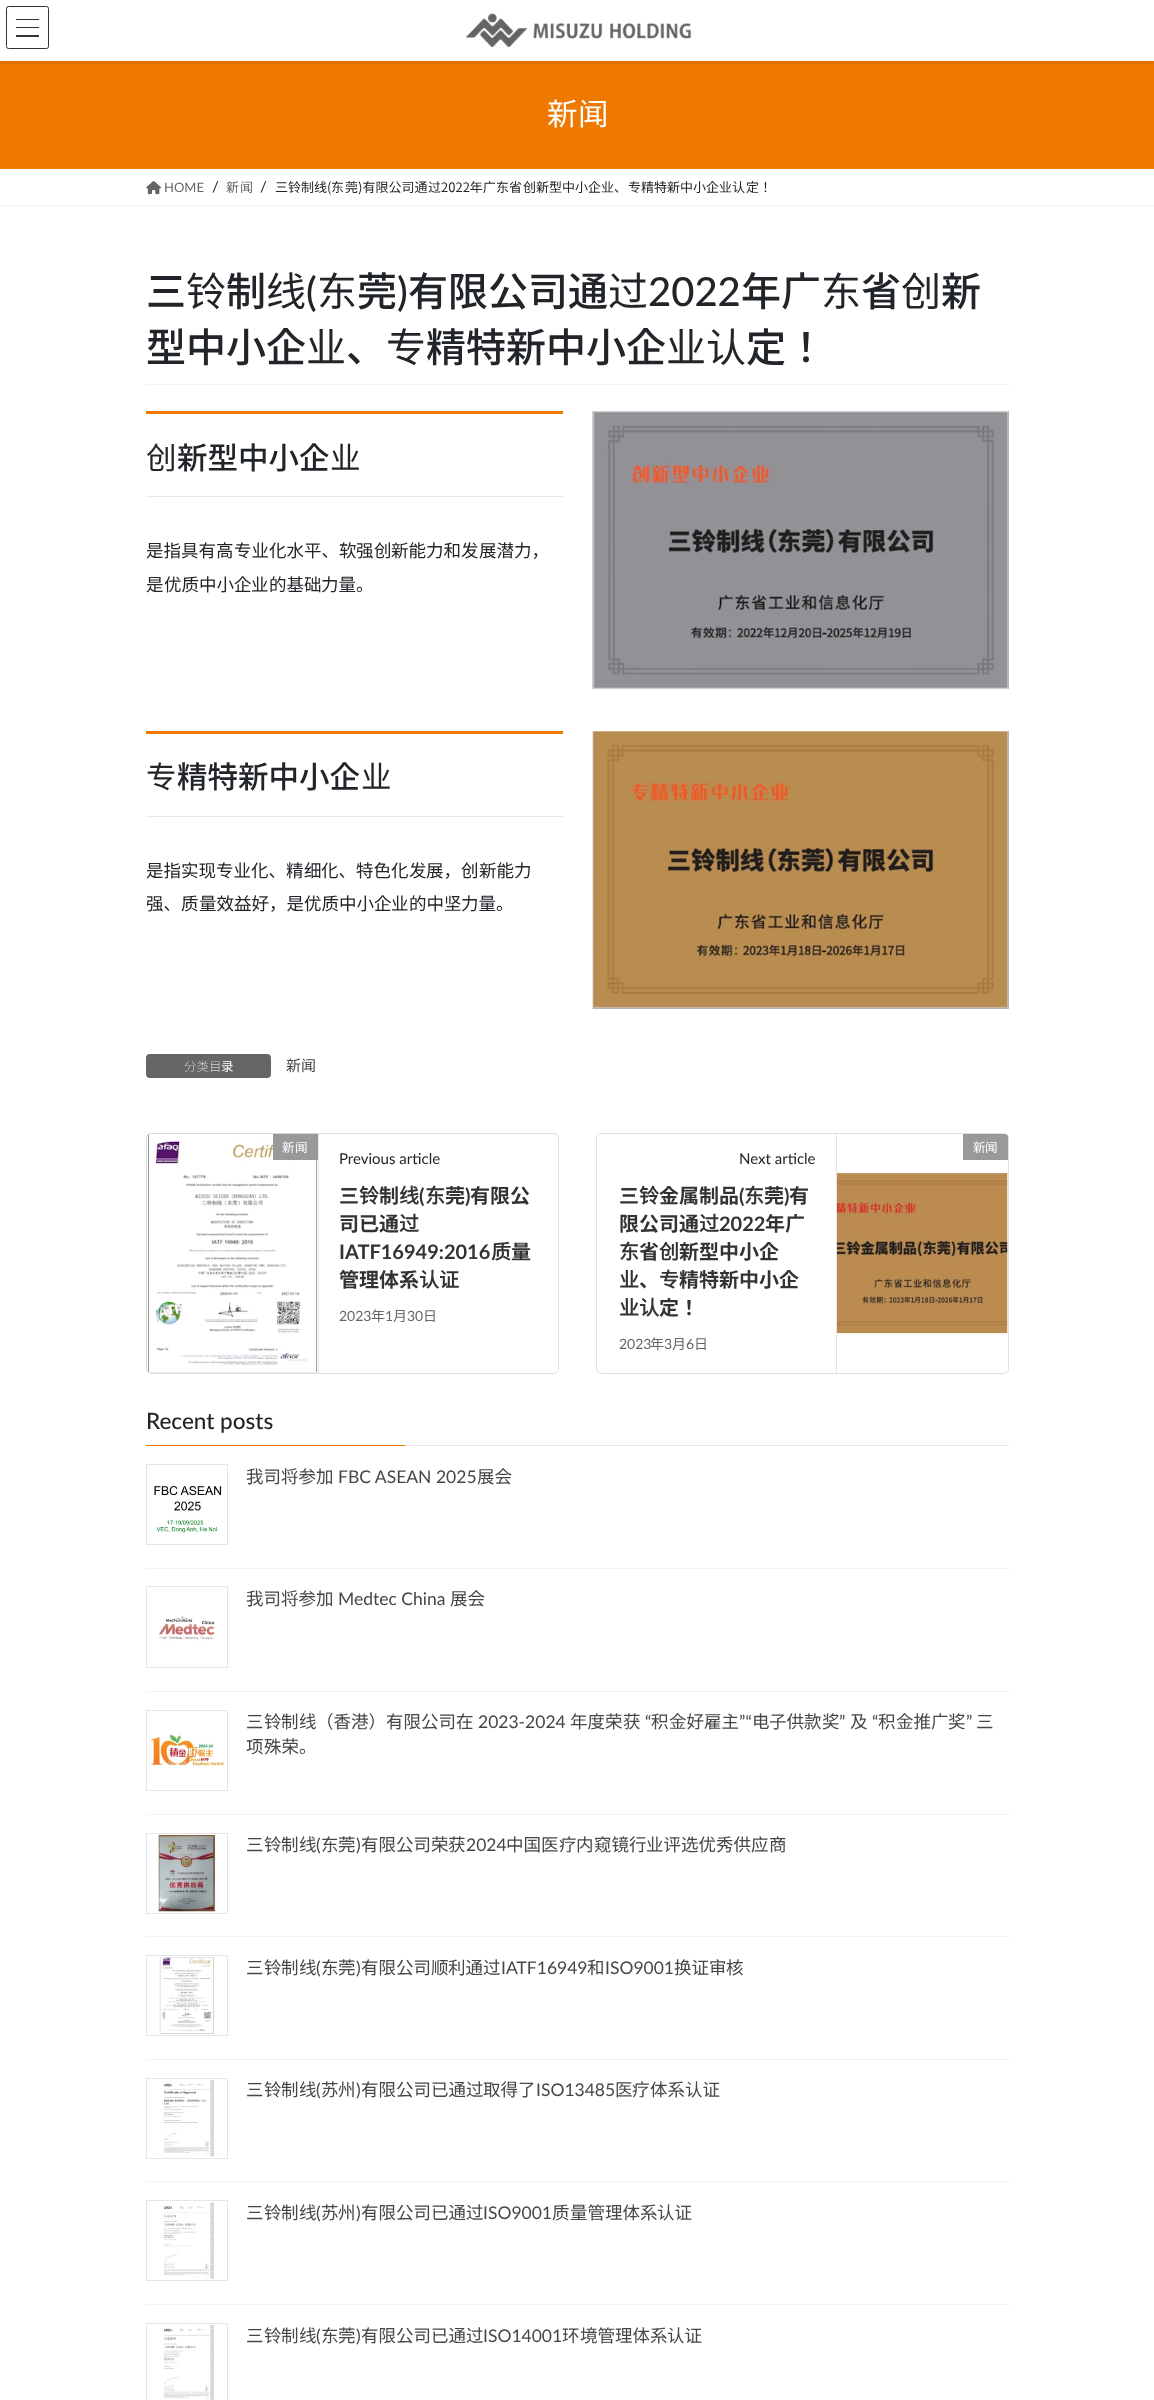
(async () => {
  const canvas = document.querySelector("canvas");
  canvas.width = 1154;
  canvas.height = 2400;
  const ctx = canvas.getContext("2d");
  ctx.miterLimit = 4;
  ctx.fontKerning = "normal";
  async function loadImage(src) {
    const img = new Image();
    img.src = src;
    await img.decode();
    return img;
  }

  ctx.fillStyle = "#ffffff";
  ctx.fillRect(0, 0, 1154, 2400);
  ctx.fillStyle = "#ee7800";
  ctx.fillRect(0, 61, 1154, 108);
  ctx.save();
  ctx.beginPath();
  ctx.rect(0, 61, 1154, 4);
  ctx.clip();
  ctx.fillStyle = "rgba(0, 0, 0, 0.1)";
  ctx.filter = "blur(2px)";
  ctx.beginPath();
  ctx.rect(0, 1, 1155, 62);
  ctx.fill();
  ctx.filter = "none";
  ctx.restore();
  ctx.drawImage(await loadImage("img/1.png"), 466, 13, 226, 35);
  for (const [x, y, w, h, color] of [
    [16, 19, 23, 1, "#333333"],
    [16, 27, 23, 1, "#333333"],
    [16, 35, 23, 2, "#333333"],
  ]) {
    ctx.fillStyle = color;
    ctx.fillRect(x, y, w, h);
  }
  ctx.beginPath();
  ctx.roundRect(6.5, 6.5, 42, 42, 2);
  ctx.strokeStyle = "#333333";
  ctx.stroke();
  ctx.fillStyle = "#f2f2f2";
  ctx.fillRect(0, 205, 1154, 1);
  ctx.drawImage(await loadImage("img/2.png"), 146, 181, 15, 14);
  for (const [x, y, w, h, color] of [
    [146, 384, 863, 1, "#f2f2f2"],
    [146, 411, 417, 3, "#ee7800"],
    [146, 496, 417, 1, "#e9e9e9"],
  ]) {
    ctx.fillStyle = color;
    ctx.fillRect(x, y, w, h);
  }
  ctx.drawImage(await loadImage("img/3.png"), 592, 411, 417, 278);
  ctx.fillStyle = "#ee7800";
  ctx.fillRect(146, 731, 417, 3);
  ctx.fillStyle = "#e9e9e9";
  ctx.fillRect(146, 816, 417, 1);
  ctx.drawImage(await loadImage("img/4.png"), 592, 731, 417, 278);
  ctx.fillStyle = "#666666";
  ctx.beginPath();
  ctx.roundRect(146, 1054, 125, 24, 4);
  ctx.fill();
  ctx.beginPath();
  ctx.roundRect(146.5, 1133.5, 412, 240, 4.5);
  ctx.strokeStyle = "#dfdfdf";
  ctx.stroke();
  ctx.drawImage(await loadImage("img/5.png"), 148, 1133, 169, 240);
  ctx.fillStyle = "#e5e5e5";
  ctx.fillRect(318, 1134, 1, 239);
  ctx.fillStyle = "#999999";
  ctx.fillRect(273, 1134, 45, 26);
  ctx.beginPath();
  ctx.roundRect(596.5, 1133.5, 412, 240, 4.5);
  ctx.stroke();
  ctx.drawImage(await loadImage("img/6.png"), 837, 1134, 171, 200);
  ctx.fillStyle = "#e5e5e5";
  ctx.fillRect(836, 1134, 1, 239);
  ctx.fillStyle = "#999999";
  ctx.beginPath();
  ctx.roundRect(963, 1134, 45, 26, [0, 3, 0, 0]);
  ctx.fill();
  for (const [x, y, w, h, color] of [
    [405, 1445, 604, 1, "#e6e6e6"],
    [146, 1445, 259, 1, "#ee7800"],
    [146, 1568, 863, 1, "#f2f2f2"],
  ]) {
    ctx.fillStyle = color;
    ctx.fillRect(x, y, w, h);
  }
  ctx.strokeStyle = "#e5e5e5";
  ctx.strokeRect(146.5, 1464.5, 81, 80);
  ctx.drawImage(await loadImage("img/7.png"), 154, 1485, 68, 50);
  ctx.fillRect(146, 1691, 863, 1);
  ctx.strokeRect(146.5, 1586.5, 81, 81);
  ctx.drawImage(await loadImage("img/8.png"), 158, 1616, 60, 26);
  ctx.fillRect(146, 1814, 863, 1);
  ctx.strokeRect(146.5, 1710.5, 81, 80);
  ctx.drawImage(await loadImage("img/9.png"), 150, 1733, 75, 35);
  ctx.fillRect(146, 1936, 863, 1);
  ctx.strokeRect(146.5, 1833.5, 81, 80);
  ctx.drawImage(await loadImage("img/10.png"), 157, 1835, 59, 77);
  ctx.fillRect(146, 2059, 863, 1);
  ctx.strokeRect(146.5, 1955.5, 81, 80);
  ctx.drawImage(await loadImage("img/11.png"), 159, 1957, 55, 77);
  ctx.fillRect(146, 2181, 863, 1);
  ctx.strokeRect(146.5, 2078.5, 81, 80);
  ctx.drawImage(await loadImage("img/12.png"), 163, 2080, 52, 77);
  ctx.fillRect(146, 2304, 863, 1);
  ctx.strokeRect(146.5, 2200.5, 81, 80);
  ctx.drawImage(await loadImage("img/13.png"), 163, 2202, 51, 77);
  ctx.strokeRect(146.5, 2323.5, 81, 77);
  ctx.drawImage(await loadImage("img/14.png"), 163, 2325, 51, 75);
  ctx.font = "30.5px Noto Sans JP";
  ctx.fillStyle = "#ffffff";
  ctx.fillText("新", 547, 125);
  ctx.font = "30.5px Noto Sans CJK SC";
  ctx.fillText("闻", 578, 125);
  ctx.font = "13px Lato";
  ctx.fillStyle = "#666666";
  ctx.fillText("HOME", 164, 192);
  ctx.font = "15px Lato";
  ctx.fillStyle = "#212529";
  ctx.fillText("/", 212, 192);
  ctx.font = "13px Noto Sans JP";
  ctx.fillStyle = "#666666";
  ctx.fillText("新", 226, 192);
  ctx.font = "13px Noto Sans CJK SC";
  ctx.fillText("闻", 240, 192);
  ctx.font = "15px Lato";
  ctx.fillStyle = "#212529";
  ctx.fillText("/", 260, 192);
  ctx.font = "13px Noto Sans JP";
  ctx.fillText("三", 275, 192);
  ctx.font = "13px Noto Sans CJK SC";
  ctx.fillText("铃", 288, 192);
  ctx.font = "13px Noto Sans JP";
  ctx.fillText("制", 301, 192);
  ctx.font = "13px Noto Sans CJK SC";
  ctx.fillText("线", 314, 192);
  ctx.font = "13px Noto Sans JP";
  ctx.fillText("(", 327, 192);
  ctx.font = "13px Noto Sans CJK SC";
  ctx.fillText("东", 331, 192);
  ctx.font = "13px Noto Sans JP";
  ctx.fillText("莞)有限公司通", 345, 192);
  ctx.font = "13px Noto Sans CJK SC";
  ctx.fillText("过", 428, 192);
  ctx.font = "13px Noto Sans JP";
  ctx.fillText("2022年广", 441, 192);
  ctx.font = "13px Noto Sans CJK SC";
  ctx.fillText("东", 496, 192);
  ctx.font = "13px Noto Sans JP";
  ctx.fillText("省", 509, 192);
  ctx.font = "13px Noto Sans CJK SC";
  ctx.fillText("创", 523, 192);
  ctx.font = "13px Noto Sans JP";
  ctx.fillText("新型中小企", 536, 192);
  ctx.font = "13px Noto Sans CJK SC";
  ctx.fillText("业", 601, 192);
  ctx.font = "13px Noto Sans JP";
  ctx.fillText("、", 614, 192);
  ctx.font = "13px Noto Sans CJK SC";
  ctx.fillText("专", 628, 192);
  ctx.font = "13px Noto Sans JP";
  ctx.fillText("精特新中小企", 641, 192);
  ctx.font = "13px Noto Sans CJK SC";
  ctx.fillText("业认", 719, 192);
  ctx.font = "13px Noto Sans JP";
  ctx.fillText("定！", 746, 192);
  ctx.font = "500 40px Noto Sans JP";
  ctx.fillText("三", 146, 306);
  ctx.font = "40px Noto Sans CJK SC";
  ctx.fillText("铃", 186, 306);
  ctx.font = "500 40px Noto Sans JP";
  ctx.fillText("制", 226, 306);
  ctx.font = "40px Noto Sans CJK SC";
  ctx.fillText("线", 266, 306);
  ctx.font = "500 40px Lato";
  ctx.fillText("(", 306, 306);
  ctx.font = "40px Noto Sans CJK SC";
  ctx.fillText("东", 317, 306);
  ctx.font = "500 40px Noto Sans JP";
  ctx.fillText("莞", 357, 306);
  ctx.font = "500 40px Lato";
  ctx.fillText(")", 397, 306);
  ctx.font = "500 40px Noto Sans JP";
  ctx.fillText("有限公司通", 408, 306);
  ctx.font = "40px Noto Sans CJK SC";
  ctx.fillText("过", 608, 306);
  ctx.font = "500 40px Lato";
  ctx.fillText("2022", 648, 306);
  ctx.font = "500 40px Noto Sans JP";
  ctx.fillText("年广", 741, 306);
  ctx.font = "40px Noto Sans CJK SC";
  ctx.fillText("东", 821, 306);
  ctx.font = "500 40px Noto Sans JP";
  ctx.fillText("省", 861, 306);
  ctx.font = "40px Noto Sans CJK SC";
  ctx.fillText("创", 901, 306);
  ctx.font = "500 40px Noto Sans JP";
  ctx.fillText("新", 941, 306);
  ctx.fillText("型中小企", 146, 362);
  ctx.font = "40px Noto Sans CJK SC";
  ctx.fillText("业", 306, 362);
  ctx.font = "500 40px Noto Sans JP";
  ctx.fillText("、", 346, 362);
  ctx.font = "40px Noto Sans CJK SC";
  ctx.fillText("专", 386, 362);
  ctx.font = "500 40px Noto Sans JP";
  ctx.fillText("精特新中小企", 426, 362);
  ctx.font = "40px Noto Sans CJK SC";
  ctx.fillText("业认", 666, 362);
  ctx.font = "500 40px Noto Sans JP";
  ctx.fillText("定！", 746, 362);
  ctx.font = "30.5px Noto Sans CJK SC";
  ctx.fillText("创", 146, 469);
  ctx.font = "500 30.5px Noto Sans JP";
  ctx.fillText("新型中小企", 177, 469);
  ctx.font = "30.5px Noto Sans CJK SC";
  ctx.fillText("业", 330, 469);
  ctx.font = "17.5px Noto Sans JP";
  ctx.fillText("是指具有高", 146, 557);
  ctx.font = "17.5px Noto Sans CJK SC";
  ctx.fillText("专业", 234, 557);
  ctx.font = "17.5px Noto Sans JP";
  ctx.fillText("化水平、", 269, 557);
  ctx.font = "17.5px Noto Sans CJK SC";
  ctx.fillText("软", 339, 557);
  ctx.font = "17.5px Noto Sans JP";
  ctx.fillText("强", 356, 557);
  ctx.font = "17.5px Noto Sans CJK SC";
  ctx.fillText("创", 374, 557);
  ctx.font = "17.5px Noto Sans JP";
  ctx.fillText("新能力和", 391, 557);
  ctx.font = "17.5px Noto Sans CJK SC";
  ctx.fillText("发", 461, 557);
  ctx.font = "17.5px Noto Sans JP";
  ctx.fillText("展潜力，", 479, 557);
  ctx.fillText("是", 146, 591);
  ctx.font = "17.5px Noto Sans CJK SC";
  ctx.fillText("优质", 164, 591);
  ctx.font = "17.5px Noto Sans JP";
  ctx.fillText("中小企", 199, 591);
  ctx.font = "17.5px Noto Sans CJK SC";
  ctx.fillText("业", 251, 591);
  ctx.font = "17.5px Noto Sans JP";
  ctx.fillText("的基", 269, 591);
  ctx.font = "17.5px Noto Sans CJK SC";
  ctx.fillText("础", 304, 591);
  ctx.font = "17.5px Noto Sans JP";
  ctx.fillText("力量。", 321, 591);
  ctx.font = "30.5px Noto Sans CJK SC";
  ctx.fillText("专", 146, 788);
  ctx.font = "500 30.5px Noto Sans JP";
  ctx.fillText("精特新中小企", 177, 788);
  ctx.font = "30.5px Noto Sans CJK SC";
  ctx.fillText("业", 361, 788);
  ctx.font = "17.5px Noto Sans JP";
  ctx.fillText("是指", 146, 877);
  ctx.font = "17.5px Noto Sans CJK SC";
  ctx.fillText("实现专业", 181, 877);
  ctx.font = "17.5px Noto Sans JP";
  ctx.fillText("化、精", 251, 877);
  ctx.font = "17.5px Noto Sans CJK SC";
  ctx.fillText("细", 304, 877);
  ctx.font = "17.5px Noto Sans JP";
  ctx.fillText("化、特色化", 321, 877);
  ctx.font = "17.5px Noto Sans CJK SC";
  ctx.fillText("发", 409, 877);
  ctx.font = "17.5px Noto Sans JP";
  ctx.fillText("展，", 426, 877);
  ctx.font = "17.5px Noto Sans CJK SC";
  ctx.fillText("创", 461, 877);
  ctx.font = "17.5px Noto Sans JP";
  ctx.fillText("新能力", 479, 877);
  ctx.fillText("强、", 146, 910);
  ctx.font = "17.5px Noto Sans CJK SC";
  ctx.fillText("质", 181, 910);
  ctx.font = "17.5px Noto Sans JP";
  ctx.fillText("量效益好，是", 199, 910);
  ctx.font = "17.5px Noto Sans CJK SC";
  ctx.fillText("优质", 304, 910);
  ctx.font = "17.5px Noto Sans JP";
  ctx.fillText("中小企", 339, 910);
  ctx.font = "17.5px Noto Sans CJK SC";
  ctx.fillText("业", 391, 910);
  ctx.font = "17.5px Noto Sans JP";
  ctx.fillText("的中", 409, 910);
  ctx.font = "17.5px Noto Sans CJK SC";
  ctx.fillText("坚", 444, 910);
  ctx.font = "17.5px Noto Sans JP";
  ctx.fillText("力量。", 461, 910);
  ctx.font = "100 12.5px Noto Sans JP";
  ctx.fillStyle = "#ffffff";
  ctx.fillText("分类目", 184, 1071);
  ctx.font = "12.5px Noto Sans CJK SC";
  ctx.fillText("录", 221, 1071);
  ctx.font = "15px Noto Sans JP";
  ctx.fillStyle = "#464646";
  ctx.fillText("新", 286, 1071);
  ctx.font = "15px Noto Sans CJK SC";
  ctx.fillText("闻", 301, 1071);
  ctx.font = "12.5px Noto Sans JP";
  ctx.fillStyle = "#ffffff";
  ctx.fillText("新", 282, 1152);
  ctx.font = "12.5px Noto Sans CJK SC";
  ctx.fillText("闻", 295, 1152);
  ctx.font = "15px Lato";
  ctx.fillStyle = "#212529";
  ctx.fillText("Previous article", 339, 1164);
  ctx.font = "bold 20px Noto Sans JP";
  ctx.fillStyle = "#333333";
  ctx.fillText("三", 339, 1203);
  ctx.font = "bold 20px Noto Sans CJK SC";
  ctx.fillText("铃", 359, 1203);
  ctx.font = "bold 20px Noto Sans JP";
  ctx.fillText("制", 379, 1203);
  ctx.font = "bold 20px Noto Sans CJK SC";
  ctx.fillText("线", 399, 1203);
  ctx.font = "bold 20px Lato";
  ctx.fillText("(", 419, 1203);
  ctx.font = "bold 20px Noto Sans CJK SC";
  ctx.fillText("东", 425, 1203);
  ctx.font = "bold 20px Noto Sans JP";
  ctx.fillText("莞", 445, 1203);
  ctx.font = "bold 20px Lato";
  ctx.fillText(")", 465, 1203);
  ctx.font = "bold 20px Noto Sans JP";
  ctx.fillText("有限公", 470, 1203);
  ctx.fillText("司已通", 339, 1231);
  ctx.font = "bold 20px Noto Sans CJK SC";
  ctx.fillText("过", 399, 1231);
  ctx.font = "bold 20px Lato";
  ctx.fillText("IATF16949:2016", 339, 1259);
  ctx.font = "bold 20px Noto Sans CJK SC";
  ctx.fillText("质", 491, 1259);
  ctx.font = "bold 20px Noto Sans JP";
  ctx.fillText("量", 511, 1259);
  ctx.fillText("管理体系", 339, 1287);
  ctx.font = "bold 20px Noto Sans CJK SC";
  ctx.fillText("认证", 419, 1287);
  ctx.font = "14px Lato";
  ctx.fillStyle = "#666666";
  ctx.fillText("2023", 339, 1321);
  ctx.font = "14px Noto Sans JP";
  ctx.fillText("年", 371, 1321);
  ctx.font = "14px Lato";
  ctx.fillText("1", 385, 1321);
  ctx.font = "14px Noto Sans JP";
  ctx.fillText("月", 393, 1321);
  ctx.font = "14px Lato";
  ctx.fillText("30", 407, 1321);
  ctx.font = "14px Noto Sans JP";
  ctx.fillText("日", 423, 1321);
  ctx.font = "12.5px Noto Sans JP";
  ctx.fillStyle = "#ffffff";
  ctx.fillText("新", 973, 1152);
  ctx.font = "12.5px Noto Sans CJK SC";
  ctx.fillText("闻", 985, 1152);
  ctx.font = "15px Lato";
  ctx.fillStyle = "#212529";
  ctx.fillText("Next article", 739, 1164);
  ctx.font = "bold 20px Noto Sans JP";
  ctx.fillStyle = "#333333";
  ctx.fillText("三", 619, 1203);
  ctx.font = "bold 20px Noto Sans CJK SC";
  ctx.fillText("铃", 639, 1203);
  ctx.font = "bold 20px Noto Sans JP";
  ctx.fillText("金属制品", 659, 1203);
  ctx.font = "bold 20px Lato";
  ctx.fillText("(", 739, 1203);
  ctx.font = "bold 20px Noto Sans CJK SC";
  ctx.fillText("东", 744, 1203);
  ctx.font = "bold 20px Noto Sans JP";
  ctx.fillText("莞", 764, 1203);
  ctx.font = "bold 20px Lato";
  ctx.fillText(")", 784, 1203);
  ctx.font = "bold 20px Noto Sans JP";
  ctx.fillText("有", 789, 1203);
  ctx.fillText("限公司通", 619, 1231);
  ctx.font = "bold 20px Noto Sans CJK SC";
  ctx.fillText("过", 699, 1231);
  ctx.font = "bold 20px Lato";
  ctx.fillText("2022", 719, 1231);
  ctx.font = "bold 20px Noto Sans JP";
  ctx.fillText("年广", 765, 1231);
  ctx.font = "bold 20px Noto Sans CJK SC";
  ctx.fillText("东", 619, 1259);
  ctx.font = "bold 20px Noto Sans JP";
  ctx.fillText("省", 639, 1259);
  ctx.font = "bold 20px Noto Sans CJK SC";
  ctx.fillText("创", 659, 1259);
  ctx.font = "bold 20px Noto Sans JP";
  ctx.fillText("新型中小企", 679, 1259);
  ctx.font = "bold 20px Noto Sans CJK SC";
  ctx.fillText("业", 619, 1287);
  ctx.font = "bold 20px Noto Sans JP";
  ctx.fillText("、", 639, 1287);
  ctx.font = "bold 20px Noto Sans CJK SC";
  ctx.fillText("专", 659, 1287);
  ctx.font = "bold 20px Noto Sans JP";
  ctx.fillText("精特新中小企", 679, 1287);
  ctx.font = "bold 20px Noto Sans CJK SC";
  ctx.fillText("业认", 619, 1315);
  ctx.font = "bold 20px Noto Sans JP";
  ctx.fillText("定！", 659, 1315);
  ctx.font = "14px Lato";
  ctx.fillStyle = "#666666";
  ctx.fillText("2023", 619, 1349);
  ctx.font = "14px Noto Sans JP";
  ctx.fillText("年", 650, 1349);
  ctx.font = "14px Lato";
  ctx.fillText("3", 664, 1349);
  ctx.font = "14px Noto Sans JP";
  ctx.fillText("月", 672, 1349);
  ctx.font = "14px Lato";
  ctx.fillText("6", 686, 1349);
  ctx.font = "14px Noto Sans JP";
  ctx.fillText("日", 694, 1349);
  ctx.font = "500 22.5px Lato";
  ctx.fillStyle = "#212529";
  ctx.fillText("Recent posts", 146, 1429);
  ctx.font = "17.5px Noto Sans JP";
  ctx.fillStyle = "#464646";
  ctx.fillText("我司将参加", 246, 1483);
  ctx.font = "17.5px Lato";
  ctx.fillText("FBC ASEAN 2025", 338, 1483);
  ctx.font = "17.5px Noto Sans JP";
  ctx.fillText("展会", 477, 1483);
  ctx.fillText("我司将参加", 246, 1605);
  ctx.font = "17.5px Lato";
  ctx.fillText("Medtec China", 338, 1605);
  ctx.font = "17.5px Noto Sans JP";
  ctx.fillText("展会", 450, 1605);
  ctx.fillText("三", 246, 1728);
  ctx.font = "17.5px Noto Sans CJK SC";
  ctx.fillText("铃", 264, 1728);
  ctx.font = "17.5px Noto Sans JP";
  ctx.fillText("制", 281, 1728);
  ctx.font = "17.5px Noto Sans CJK SC";
  ctx.fillText("线", 299, 1728);
  ctx.font = "17.5px Noto Sans JP";
  ctx.fillText("（香港）有限公司在", 316, 1728);
  ctx.font = "17.5px Lato";
  ctx.fillText("2023-2024", 478, 1728);
  ctx.font = "17.5px Noto Sans JP";
  ctx.fillText("年度荣", 570, 1728);
  ctx.font = "17.5px Noto Sans CJK SC";
  ctx.fillText("获", 623, 1728);
  ctx.font = "17.5px Lato";
  ctx.fillText("“", 645, 1728);
  ctx.font = "17.5px Noto Sans CJK SC";
  ctx.fillText("积", 651, 1728);
  ctx.font = "17.5px Noto Sans JP";
  ctx.fillText("金好雇主", 669, 1728);
  ctx.font = "17.5px Lato";
  ctx.fillText("”“", 739, 1728);
  ctx.font = "17.5px Noto Sans CJK SC";
  ctx.fillText("电", 752, 1728);
  ctx.font = "17.5px Noto Sans JP";
  ctx.fillText("子供款", 769, 1728);
  ctx.font = "17.5px Noto Sans CJK SC";
  ctx.fillText("奖", 822, 1728);
  ctx.font = "17.5px Lato";
  ctx.fillText("”", 839, 1728);
  ctx.font = "17.5px Noto Sans JP";
  ctx.fillText("及", 850, 1728);
  ctx.font = "17.5px Lato";
  ctx.fillText("“", 872, 1728);
  ctx.font = "17.5px Noto Sans CJK SC";
  ctx.fillText("积", 878, 1728);
  ctx.font = "17.5px Noto Sans JP";
  ctx.fillText("金推广", 896, 1728);
  ctx.font = "17.5px Noto Sans CJK SC";
  ctx.fillText("奖", 948, 1728);
  ctx.font = "17.5px Lato";
  ctx.fillText("”", 966, 1728);
  ctx.font = "17.5px Noto Sans JP";
  ctx.fillText("三", 976, 1728);
  ctx.font = "17.5px Noto Sans CJK SC";
  ctx.fillText("项", 246, 1753);
  ctx.font = "17.5px Noto Sans JP";
  ctx.fillText("殊荣。", 264, 1753);
  ctx.fillText("三", 246, 1851);
  ctx.font = "17.5px Noto Sans CJK SC";
  ctx.fillText("铃", 264, 1851);
  ctx.font = "17.5px Noto Sans JP";
  ctx.fillText("制", 281, 1851);
  ctx.font = "17.5px Noto Sans CJK SC";
  ctx.fillText("线", 299, 1851);
  ctx.font = "17.5px Lato";
  ctx.fillText("(", 316, 1851);
  ctx.font = "17.5px Noto Sans CJK SC";
  ctx.fillText("东", 321, 1851);
  ctx.font = "17.5px Noto Sans JP";
  ctx.fillText("莞", 338, 1851);
  ctx.font = "17.5px Lato";
  ctx.fillText(")", 356, 1851);
  ctx.font = "17.5px Noto Sans JP";
  ctx.fillText("有限公司荣", 361, 1851);
  ctx.font = "17.5px Noto Sans CJK SC";
  ctx.fillText("获", 448, 1851);
  ctx.font = "17.5px Lato";
  ctx.fillText("2024", 466, 1851);
  ctx.font = "17.5px Noto Sans JP";
  ctx.fillText("中国医", 506, 1851);
  ctx.font = "17.5px Noto Sans CJK SC";
  ctx.fillText("疗", 559, 1851);
  ctx.font = "17.5px Noto Sans JP";
  ctx.fillText("内", 576, 1851);
  ctx.font = "17.5px Noto Sans CJK SC";
  ctx.fillText("窥镜", 594, 1851);
  ctx.font = "17.5px Noto Sans JP";
  ctx.fillText("行", 629, 1851);
  ctx.font = "17.5px Noto Sans CJK SC";
  ctx.fillText("业评选优", 646, 1851);
  ctx.font = "17.5px Noto Sans JP";
  ctx.fillText("秀供", 716, 1851);
  ctx.font = "17.5px Noto Sans CJK SC";
  ctx.fillText("应", 751, 1851);
  ctx.font = "17.5px Noto Sans JP";
  ctx.fillText("商", 769, 1851);
  ctx.fillText("三", 246, 1974);
  ctx.font = "17.5px Noto Sans CJK SC";
  ctx.fillText("铃", 264, 1974);
  ctx.font = "17.5px Noto Sans JP";
  ctx.fillText("制", 281, 1974);
  ctx.font = "17.5px Noto Sans CJK SC";
  ctx.fillText("线", 299, 1974);
  ctx.font = "17.5px Lato";
  ctx.fillText("(", 316, 1974);
  ctx.font = "17.5px Noto Sans CJK SC";
  ctx.fillText("东", 321, 1974);
  ctx.font = "17.5px Noto Sans JP";
  ctx.fillText("莞", 338, 1974);
  ctx.font = "17.5px Lato";
  ctx.fillText(")", 356, 1974);
  ctx.font = "17.5px Noto Sans JP";
  ctx.fillText("有限公司", 361, 1974);
  ctx.font = "17.5px Noto Sans CJK SC";
  ctx.fillText("顺", 431, 1974);
  ctx.font = "17.5px Noto Sans JP";
  ctx.fillText("利通", 448, 1974);
  ctx.font = "17.5px Noto Sans CJK SC";
  ctx.fillText("过", 483, 1974);
  ctx.font = "17.5px Lato";
  ctx.fillText("IATF16949", 501, 1974);
  ctx.font = "17.5px Noto Sans JP";
  ctx.fillText("和", 587, 1974);
  ctx.font = "17.5px Lato";
  ctx.fillText("ISO9001", 605, 1974);
  ctx.font = "17.5px Noto Sans CJK SC";
  ctx.fillText("换证审", 674, 1974);
  ctx.font = "17.5px Noto Sans JP";
  ctx.fillText("核", 726, 1974);
  ctx.fillText("三", 246, 2096);
  ctx.font = "17.5px Noto Sans CJK SC";
  ctx.fillText("铃", 264, 2096);
  ctx.font = "17.5px Noto Sans JP";
  ctx.fillText("制", 281, 2096);
  ctx.font = "17.5px Noto Sans CJK SC";
  ctx.fillText("线", 299, 2096);
  ctx.font = "17.5px Lato";
  ctx.fillText("(", 316, 2096);
  ctx.font = "17.5px Noto Sans CJK SC";
  ctx.fillText("苏", 321, 2096);
  ctx.font = "17.5px Noto Sans JP";
  ctx.fillText("州", 338, 2096);
  ctx.font = "17.5px Lato";
  ctx.fillText(")", 356, 2096);
  ctx.font = "17.5px Noto Sans JP";
  ctx.fillText("有限公司已通", 361, 2096);
  ctx.font = "17.5px Noto Sans CJK SC";
  ctx.fillText("过", 466, 2096);
  ctx.font = "17.5px Noto Sans JP";
  ctx.fillText("取得了", 483, 2096);
  ctx.font = "17.5px Lato";
  ctx.fillText("ISO13485", 536, 2096);
  ctx.font = "17.5px Noto Sans JP";
  ctx.fillText("医", 615, 2096);
  ctx.font = "17.5px Noto Sans CJK SC";
  ctx.fillText("疗", 632, 2096);
  ctx.font = "17.5px Noto Sans JP";
  ctx.fillText("体系", 650, 2096);
  ctx.font = "17.5px Noto Sans CJK SC";
  ctx.fillText("认证", 685, 2096);
  ctx.font = "17.5px Noto Sans JP";
  ctx.fillText("三", 246, 2219);
  ctx.font = "17.5px Noto Sans CJK SC";
  ctx.fillText("铃", 264, 2219);
  ctx.font = "17.5px Noto Sans JP";
  ctx.fillText("制", 281, 2219);
  ctx.font = "17.5px Noto Sans CJK SC";
  ctx.fillText("线", 299, 2219);
  ctx.font = "17.5px Lato";
  ctx.fillText("(", 316, 2219);
  ctx.font = "17.5px Noto Sans CJK SC";
  ctx.fillText("苏", 321, 2219);
  ctx.font = "17.5px Noto Sans JP";
  ctx.fillText("州", 338, 2219);
  ctx.font = "17.5px Lato";
  ctx.fillText(")", 356, 2219);
  ctx.font = "17.5px Noto Sans JP";
  ctx.fillText("有限公司已通", 361, 2219);
  ctx.font = "17.5px Noto Sans CJK SC";
  ctx.fillText("过", 466, 2219);
  ctx.font = "17.5px Lato";
  ctx.fillText("ISO9001", 483, 2219);
  ctx.font = "17.5px Noto Sans CJK SC";
  ctx.fillText("质", 552, 2219);
  ctx.font = "17.5px Noto Sans JP";
  ctx.fillText("量管理体系", 570, 2219);
  ctx.font = "17.5px Noto Sans CJK SC";
  ctx.fillText("认证", 657, 2219);
  ctx.font = "17.5px Noto Sans JP";
  ctx.fillText("三", 246, 2342);
  ctx.font = "17.5px Noto Sans CJK SC";
  ctx.fillText("铃", 264, 2342);
  ctx.font = "17.5px Noto Sans JP";
  ctx.fillText("制", 281, 2342);
  ctx.font = "17.5px Noto Sans CJK SC";
  ctx.fillText("线", 299, 2342);
  ctx.font = "17.5px Lato";
  ctx.fillText("(", 316, 2342);
  ctx.font = "17.5px Noto Sans CJK SC";
  ctx.fillText("东", 321, 2342);
  ctx.font = "17.5px Noto Sans JP";
  ctx.fillText("莞", 338, 2342);
  ctx.font = "17.5px Lato";
  ctx.fillText(")", 356, 2342);
  ctx.font = "17.5px Noto Sans JP";
  ctx.fillText("有限公司已通", 361, 2342);
  ctx.font = "17.5px Noto Sans CJK SC";
  ctx.fillText("过", 466, 2342);
  ctx.font = "17.5px Lato";
  ctx.fillText("ISO14001", 483, 2342);
  ctx.font = "17.5px Noto Sans CJK SC";
  ctx.fillText("环", 562, 2342);
  ctx.font = "17.5px Noto Sans JP";
  ctx.fillText("境管理体系", 580, 2342);
  ctx.font = "17.5px Noto Sans CJK SC";
  ctx.fillText("认证", 667, 2342);
})();
